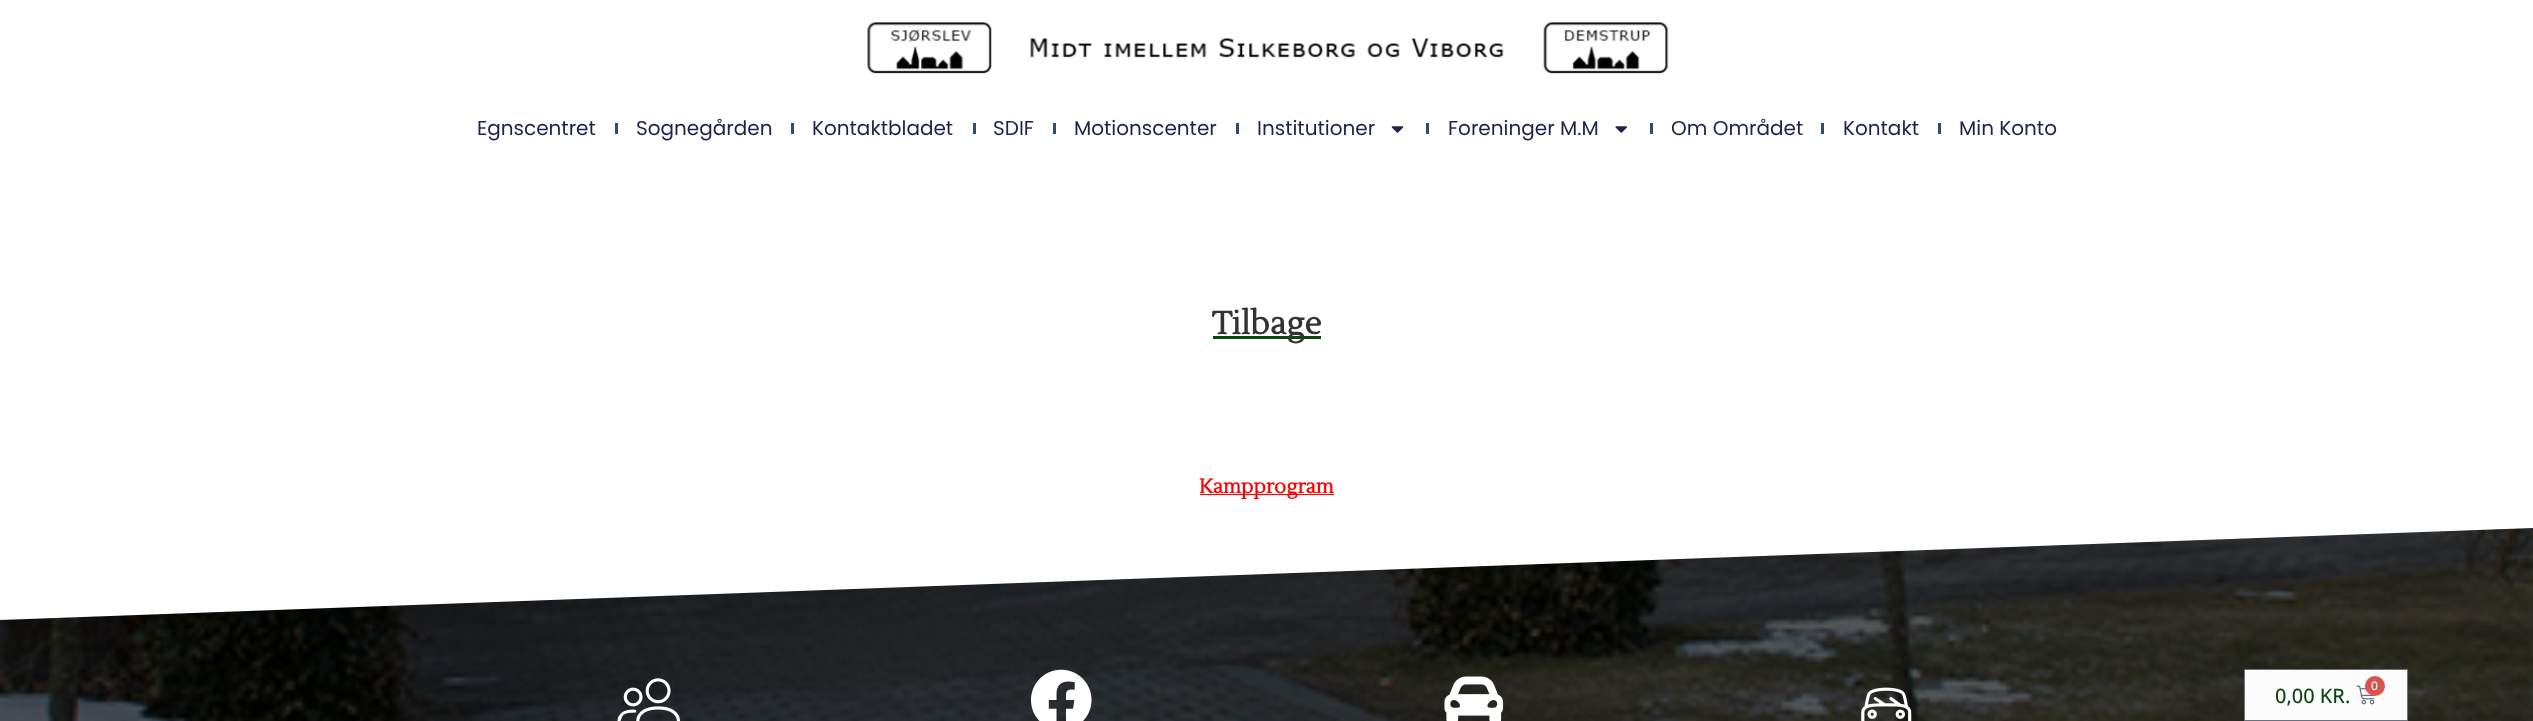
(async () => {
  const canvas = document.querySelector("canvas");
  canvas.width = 2533;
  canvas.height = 721;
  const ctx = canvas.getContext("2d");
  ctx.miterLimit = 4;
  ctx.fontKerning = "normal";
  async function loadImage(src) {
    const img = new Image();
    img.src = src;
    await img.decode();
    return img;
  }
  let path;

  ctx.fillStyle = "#ffffff";
  ctx.fillRect(0, 0, 2533, 721);
  ctx.drawImage(await loadImage("img/1.png"), 867, 22, 802, 52);
  for (const [x, y, w, h, color] of [
    [615, 123, 3, 11, "#324a6d"],
    [791, 123, 3, 11, "#324a6d"],
    [973, 123, 3, 11, "#324a6d"],
    [1053, 123, 3, 11, "#324a6d"],
    [1236, 123, 3, 11, "#324a6d"],
  ]) {
    ctx.fillStyle = color;
    ctx.fillRect(x, y, w, h);
  }
  ctx.drawImage(await loadImage("img/2.png"), 1391, 126, 13, 7);
  ctx.fillRect(1426, 123, 3, 11);
  ctx.drawImage(await loadImage("img/3.png"), 1615, 126, 12, 7);
  for (const [x, y, w, h, color] of [
    [1650, 123, 3, 11, "#324a6d"],
    [1821, 123, 3, 11, "#324a6d"],
    [1938, 123, 3, 11, "#324a6d"],
    [1213, 336, 108, 3, "#0b460e"],
    [1200, 494, 134, 1, "#ff0000"],
  ]) {
    ctx.fillStyle = color;
    ctx.fillRect(x, y, w, h);
  }
  ctx.drawImage(await loadImage("img/4.png"), 0, 528, 2533, 193);
  ctx.save();
  ctx.beginPath();
  ctx.rect(0, 523, 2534, 97);
  ctx.clip();
  ctx.fillStyle = "#ffffff";
  path = new Path2D("M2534 528V522H-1V620Z");
  ctx.fill(path);
  ctx.restore();
  ctx.drawImage(await loadImage("img/5.png"), 617, 678, 63, 43);
  ctx.drawImage(await loadImage("img/6.png"), 1031, 669, 61, 52);
  ctx.drawImage(await loadImage("img/7.png"), 1444, 676, 60, 45);
  ctx.drawImage(await loadImage("img/8.png"), 1861, 687, 51, 34);
  ctx.fillStyle = "#fcfcfc";
  ctx.beginPath();
  ctx.rect(2244.5, 669.5, 163, 51);
  ctx.fill();
  ctx.strokeStyle = "#69727d";
  ctx.stroke();
  ctx.drawImage(await loadImage("img/9.png"), 2356, 685, 19, 20);
  ctx.fillStyle = "#d9534f";
  ctx.beginPath();
  ctx.arc(2375, 686, 10, 0, Math.PI * 2);
  ctx.fill();
  ctx.font = "20px Poppins";
  ctx.fillStyle = "#1c244b";
  for (const [text, x, y] of [
    ["Egnscentret", 477, 135],
    ["Sognegården", 636, 135],
    ["Kontaktbladet", 812, 135],
    ["SDIF", 993, 135],
    ["Motionscenter", 1074, 135],
    ["Institutioner", 1257, 135],
    ["Foreninger M.M", 1448, 135],
    ["Om Området", 1671, 135],
    ["Kontakt", 1843, 135],
    ["Min Konto", 1959, 135],
  ]) {
    ctx.fillText(text, x, y);
  }
  ctx.font = "bold 32px Lustria";
  ctx.fillStyle = "#333333";
  ctx.fillText("Tilbage", 1212, 334);
  ctx.font = "bold 20px Lustria";
  ctx.fillStyle = "#ff0000";
  ctx.fillText("Kampprogram", 1199, 493);
  ctx.font = "500 12px Open Sans";
  ctx.fillStyle = "#ffffff";
  ctx.fillText("0", 2371, 690);
  ctx.font = "500 20px Open Sans";
  ctx.fillStyle = "#0b460e";
  ctx.fillText("0,00 KR.", 2275, 703);
})();
